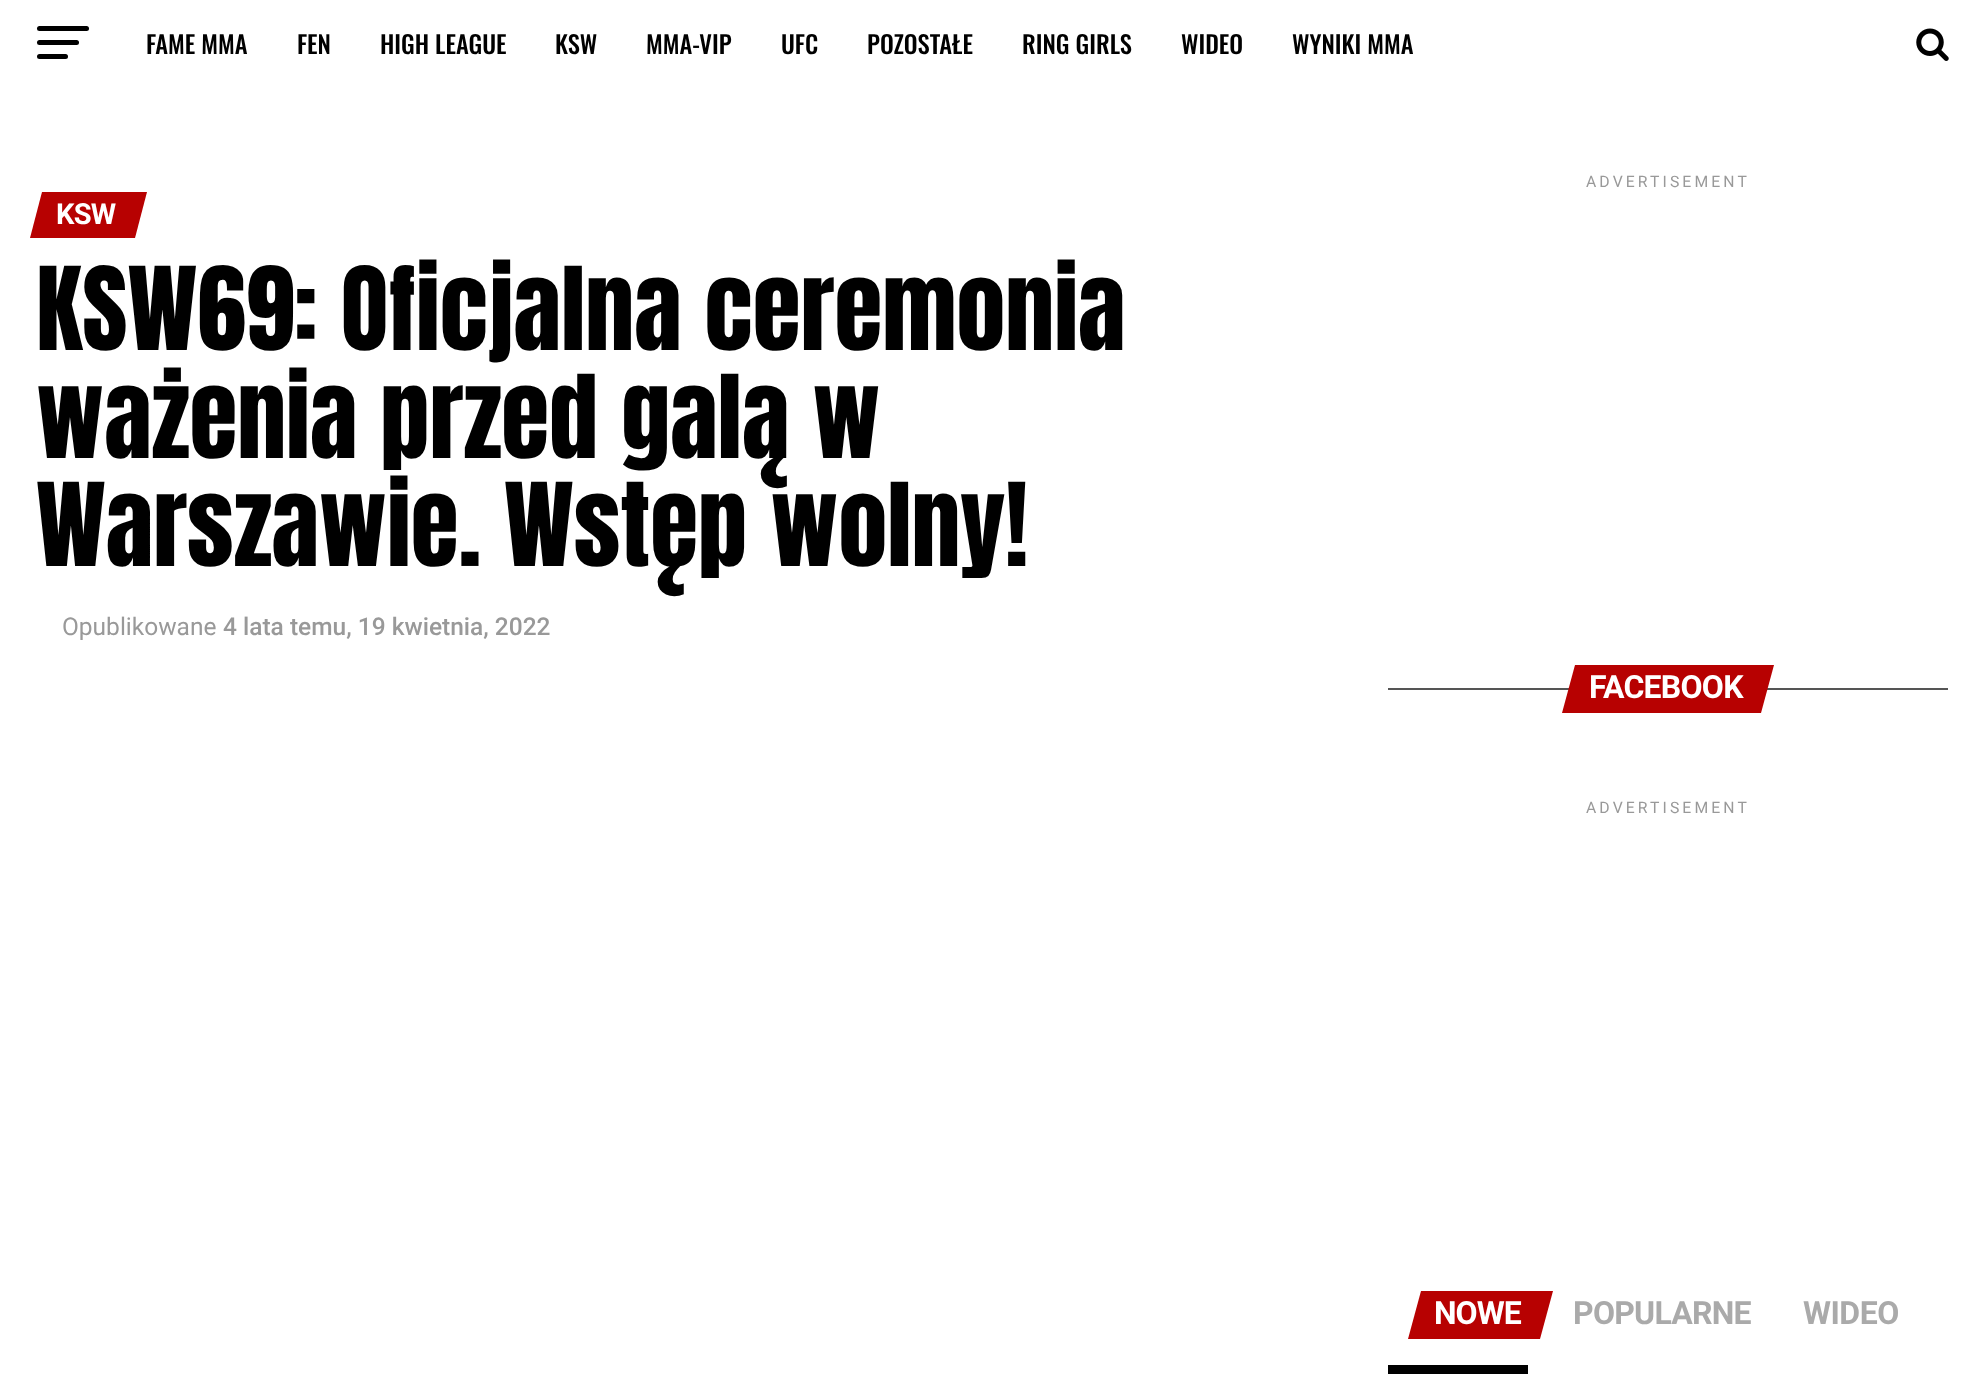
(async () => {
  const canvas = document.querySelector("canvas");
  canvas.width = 1984;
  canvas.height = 1374;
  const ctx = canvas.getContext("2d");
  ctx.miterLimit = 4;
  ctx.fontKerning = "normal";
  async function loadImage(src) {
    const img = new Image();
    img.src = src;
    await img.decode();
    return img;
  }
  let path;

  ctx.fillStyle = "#ffffff";
  ctx.fillRect(0, 0, 1984, 1374);
  ctx.fillStyle = "#000000";
  ctx.beginPath();
  ctx.roundRect(37, 26, 52, 5, 2.5);
  ctx.fill();
  ctx.beginPath();
  ctx.roundRect(37, 40, 42, 5, 2.5);
  ctx.fill();
  ctx.beginPath();
  ctx.roundRect(37, 54, 31, 5, 2.5);
  ctx.fill();
  ctx.drawImage(await loadImage("img/1.png"), 1916, 28, 33, 33);
  ctx.fillStyle = "#b70101";
  path = new Path2D("M42 192H147L135 238H30Z");
  ctx.fill(path);
  ctx.fillStyle = "#555555";
  ctx.fillRect(1388, 688, 560, 2);
  ctx.fillStyle = "#b70101";
  path = new Path2D("M1575 665H1774L1761 713H1562Z");
  ctx.fill(path);
  path = new Path2D("M1421 1291H1553L1540 1339H1408Z");
  ctx.fill(path);
  ctx.fillStyle = "#000000";
  ctx.fillRect(1388, 1365, 140, 9);
  ctx.font = "500 24.5px Oswald";
  for (const [text, x, y] of [
    ["FAME MMA", 146, 54],
    ["FEN", 297, 54],
    ["HIGH LEAGUE", 380, 54],
    ["KSW", 555, 54],
    ["MMA-VIP", 646, 54],
    ["UFC", 781, 54],
    ["POZOSTAŁE", 867, 54],
    ["RING GIRLS", 1022, 54],
    ["WIDEO", 1181, 54],
    ["WYNIKI MMA", 1292, 54],
  ]) {
    ctx.fillText(text, x, y);
  }
  ctx.letterSpacing = "-0.75px";
  ctx.font = "bold 29px Roboto";
  ctx.fillStyle = "#ffffff";
  ctx.fillText("KSW", 56, 224);
  ctx.letterSpacing = "0px";
  ctx.font = "98px Anton";
  ctx.fillStyle = "#000000";
  for (const [text, x, y] of [
    ["KSW69: Oficjalna ceremonia", 36, 350],
    ["ważenia przed galą w", 36, 458],
    ["Warszawie. Wstęp wolny!", 36, 566],
  ]) {
    ctx.fillText(text, x, y);
  }
  ctx.font = "24.5px Roboto";
  ctx.fillStyle = "#999999";
  ctx.fillText("Opublikowane", 62, 635);
  ctx.font = "500 24.5px Roboto";
  ctx.fillText("4 lata temu, 19 kwietnia, 2022", 223, 635);
  ctx.letterSpacing = "3.1px";
  ctx.font = "15.75px Roboto";
  ctx.fillText("ADVERTISEMENT", 1586, 187);
  ctx.letterSpacing = "-0.75px";
  ctx.font = "bold 32px Roboto";
  ctx.fillStyle = "#ffffff";
  ctx.fillText("FACEBOOK", 1589, 698);
  ctx.letterSpacing = "3.1px";
  ctx.font = "15.75px Roboto";
  ctx.fillStyle = "#999999";
  ctx.fillText("ADVERTISEMENT", 1586, 813);
  ctx.letterSpacing = "-1px";
  ctx.font = "bold 32px Roboto";
  ctx.fillStyle = "#ffffff";
  ctx.fillText("NOWE", 1434, 1324);
  ctx.letterSpacing = "-0.75px";
  ctx.fillStyle = "#aaaaaa";
  ctx.fillText("POPULARNE", 1573, 1324);
  ctx.letterSpacing = "-0.5px";
  ctx.fillText("WIDEO", 1803, 1324);
})();
